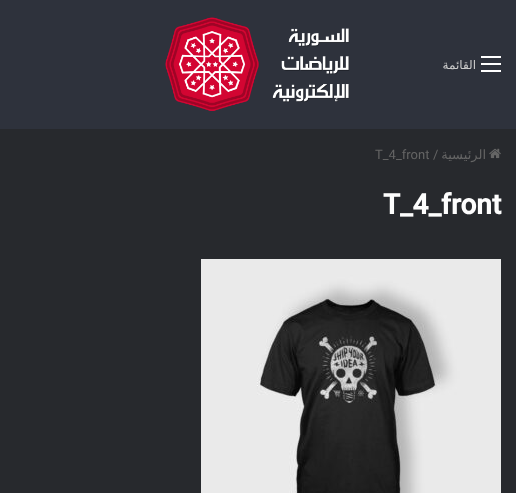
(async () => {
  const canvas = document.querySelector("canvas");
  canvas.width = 516;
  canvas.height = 493;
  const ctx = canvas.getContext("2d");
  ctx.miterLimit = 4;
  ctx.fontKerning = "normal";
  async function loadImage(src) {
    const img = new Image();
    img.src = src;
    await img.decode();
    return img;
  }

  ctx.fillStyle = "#27292d";
  ctx.fillRect(0, 0, 516, 493);
  ctx.fillStyle = "#2e323c";
  ctx.fillRect(0, 0, 516, 129);
  ctx.drawImage(await loadImage("img/1.png"), 165, 17, 185, 94);
  for (const [x, y, w, h, color] of [
    [481, 63, 20, 2, "#ffffff"],
    [481, 56, 20, 2, "#ffffff"],
    [481, 70, 20, 2, "#ffffff"],
  ]) {
    ctx.fillStyle = color;
    ctx.fillRect(x, y, w, h);
  }
  ctx.drawImage(await loadImage("img/2.png"), 489, 148, 12, 11);
  ctx.drawImage(await loadImage("img/3.png"), 201, 259, 300, 234);
  ctx.direction = "rtl";
  ctx.font = "12px DejaVu Sans";
  ctx.fillStyle = "#cccccc";
  ctx.fillText("القائمة", 476, 69);
  ctx.direction = "ltr";
  ctx.font = "13px Roboto";
  ctx.fillStyle = "#656565";
  ctx.fillText("T_4_front", 375, 159);
  ctx.fillText("/", 433, 159);
  ctx.direction = "rtl";
  ctx.font = "13px DejaVu Sans";
  ctx.fillText("الرئيسية", 486, 159);
  ctx.direction = "ltr";
  ctx.font = "bold 28px Roboto";
  ctx.fillStyle = "#fdfdfd";
  ctx.fillText("T_4_front", 383, 214);
})();
